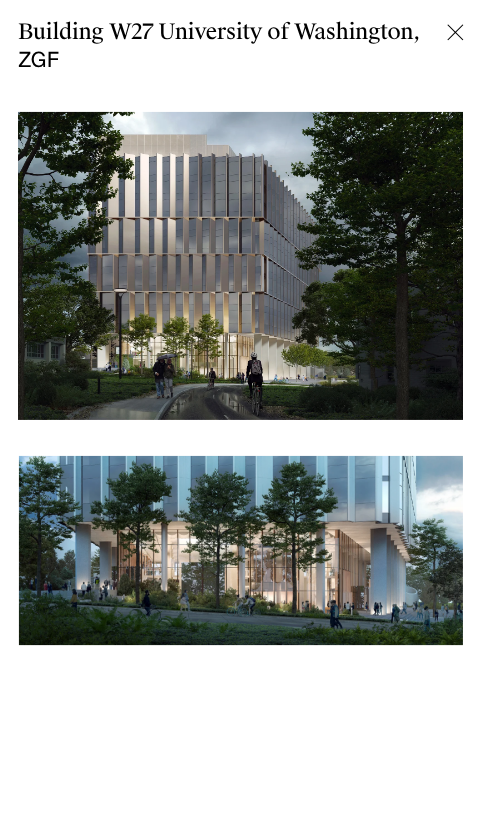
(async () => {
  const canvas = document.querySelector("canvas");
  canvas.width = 481;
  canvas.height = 839;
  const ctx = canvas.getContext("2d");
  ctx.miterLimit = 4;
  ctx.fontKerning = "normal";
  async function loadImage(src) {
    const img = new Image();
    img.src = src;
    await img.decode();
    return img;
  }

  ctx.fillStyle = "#ffffff";
  ctx.fillRect(0, 0, 481, 839);
  ctx.drawImage(await loadImage("img/1.png"), 18, 111, 445, 309);
  ctx.drawImage(await loadImage("img/2.png"), 18, 455, 445, 191);
  ctx.drawImage(await loadImage("img/3.png"), 447, 24, 17, 17);
  ctx.letterSpacing = "-0.3px";
  ctx.font = "21.4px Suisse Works";
  ctx.fillStyle = "#000000";
  ctx.fillText("Building W27 University of Washington", 18, 39);
  ctx.font = "21px Suisse Works";
  ctx.fillText(",", 413, 39);
  ctx.letterSpacing = "0px";
  ctx.font = "21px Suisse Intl";
  ctx.fillText("ZGF", 18, 67);
})();
